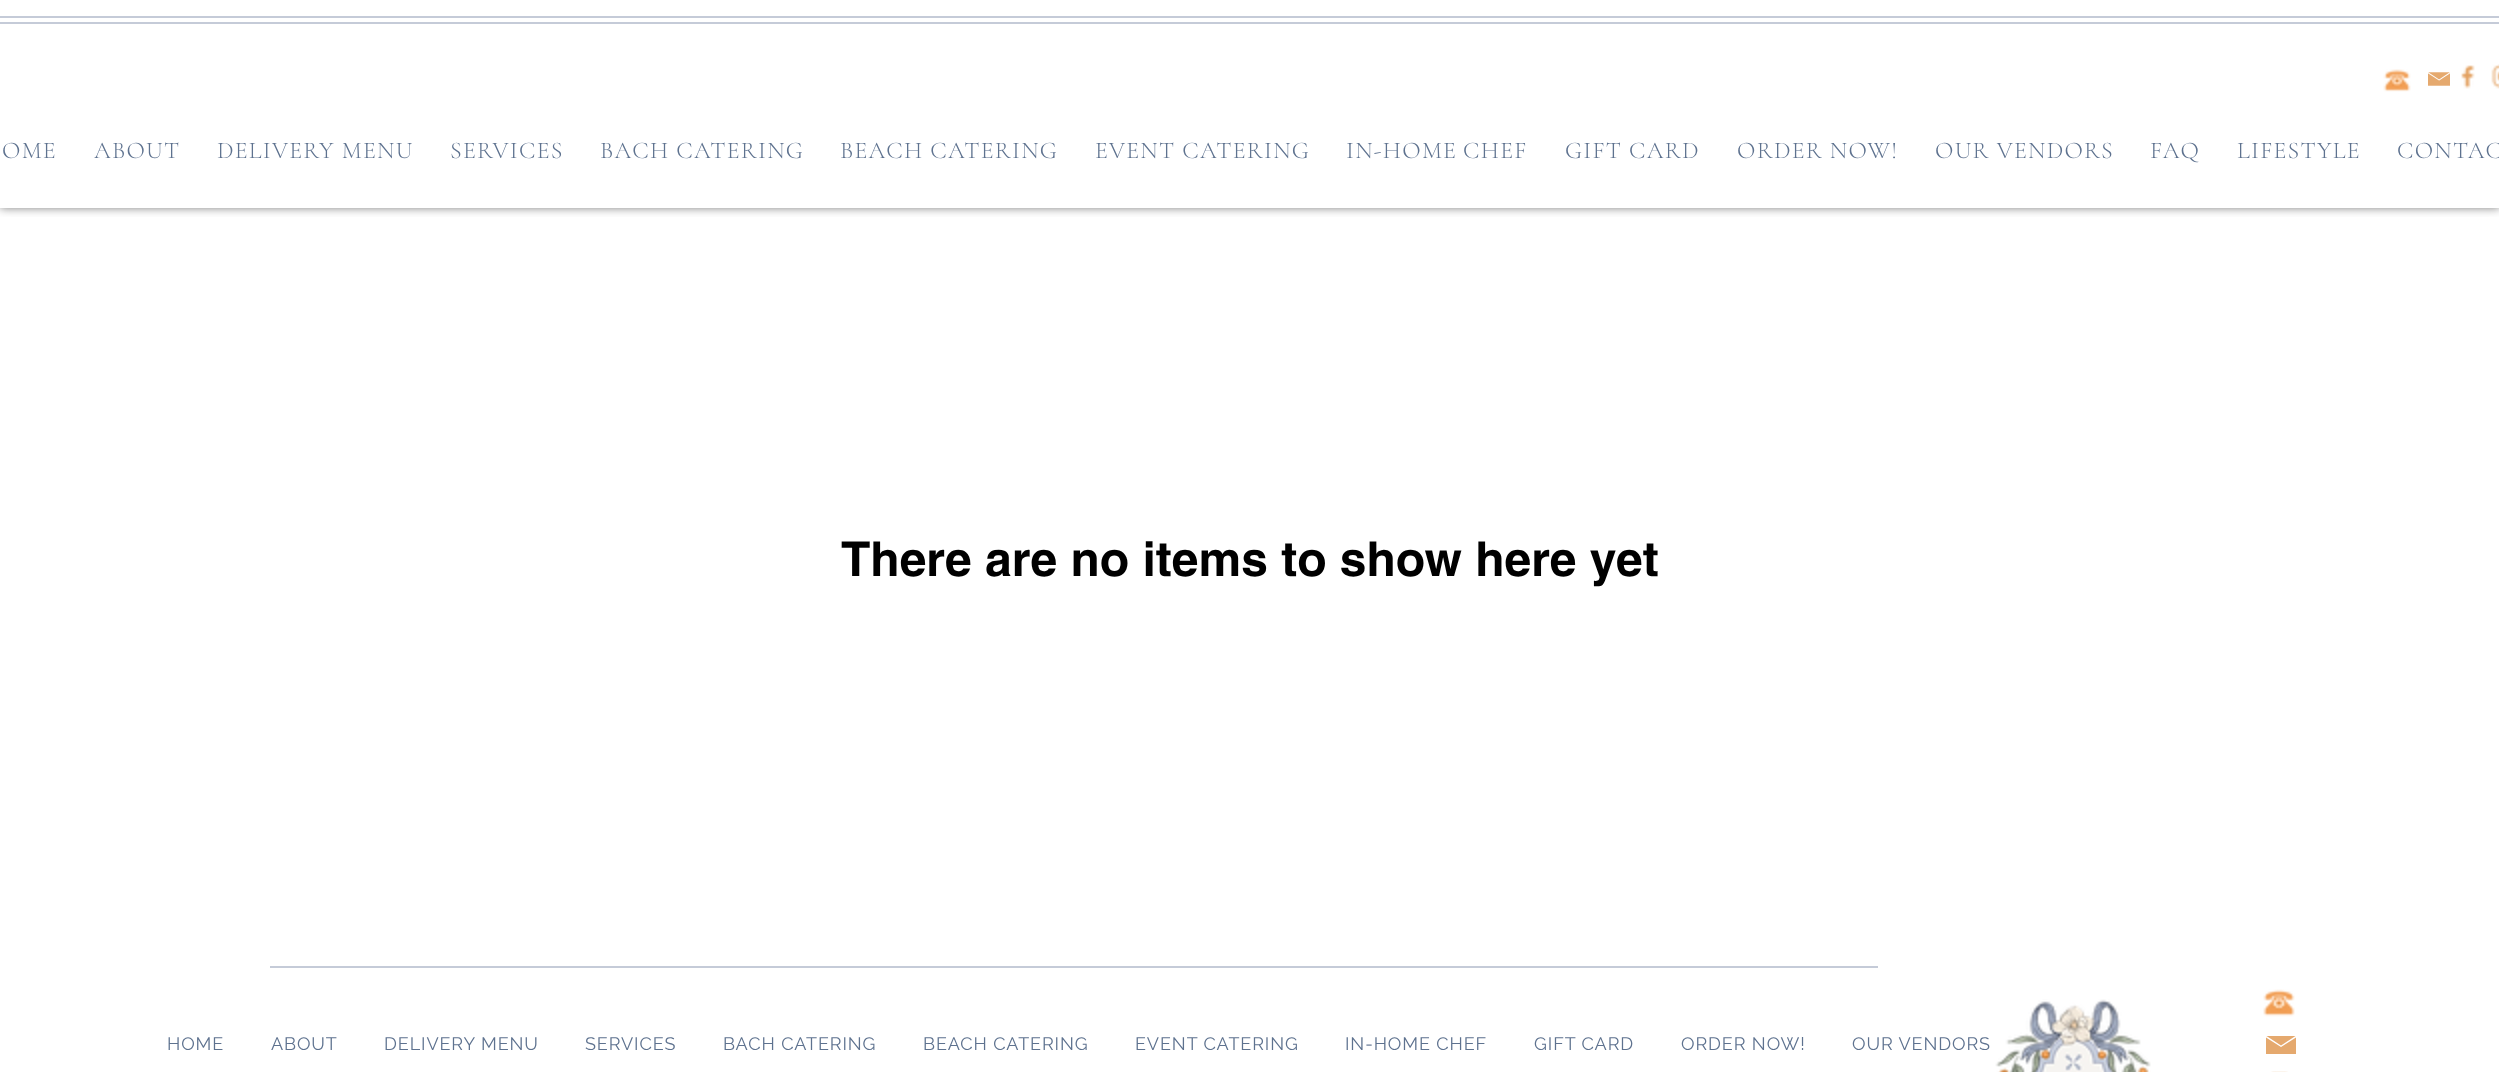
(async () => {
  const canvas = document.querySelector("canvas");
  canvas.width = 2499;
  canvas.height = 1072;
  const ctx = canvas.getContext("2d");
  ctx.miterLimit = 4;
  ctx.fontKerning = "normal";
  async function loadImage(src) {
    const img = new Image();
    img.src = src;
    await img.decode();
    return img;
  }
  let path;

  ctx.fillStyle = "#ffffff";
  ctx.fillRect(0, 0, 2499, 1072);
  ctx.save();
  ctx.beginPath();
  ctx.rect(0, 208, 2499, 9);
  ctx.clip();
  ctx.fillStyle = "rgba(0, 0, 0, 0.5)";
  ctx.filter = "blur(5px)";
  ctx.beginPath();
  ctx.rect(0, 0, 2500, 208);
  ctx.fill();
  ctx.filter = "none";
  ctx.restore();
  ctx.fillStyle = "#c5cbd8";
  ctx.fillRect(0, 16, 2499, 2);
  ctx.fillRect(0, 22, 2499, 2);
  ctx.drawImage(await loadImage("img/1.png"), 2383, 69, 28, 23);
  ctx.drawImage(await loadImage("img/2.png"), 2428, 72, 22, 14);
  ctx.drawImage(await loadImage("img/3.png"), 2461, 65, 14, 24);
  ctx.drawImage(await loadImage("img/4.png"), 2491, 64, 8, 25);
  ctx.fillRect(270, 966, 1608, 2);
  ctx.drawImage(await loadImage("img/5.png"), 1995, 999, 156, 73);
  ctx.drawImage(await loadImage("img/6.png"), 2263, 989, 32, 28);
  ctx.fillStyle = "#e5a96e";
  path = new Path2D("M2281 1045.5L2266.5 1036H2295.5ZM2296 1037.5L2281 1047L2266 1037.5V1054H2296Z");
  ctx.fill(path);
  ctx.drawImage(await loadImage("img/7.png"), 2271, 1071, 17, 1);
  ctx.letterSpacing = "1.25px";
  ctx.font = "300 24px Cormorant Garamond";
  ctx.fillStyle = "#5e728f";
  for (const [text, x, y] of [
    ["OME", 2, 158],
    ["ABOUT", 94, 158],
    ["DELIVERY MENU", 217, 158],
    ["SERVICES", 450, 158],
    ["BACH CATERING", 600, 158],
    ["BEACH CATERING", 840, 158],
    ["EVENT CATERING", 1095, 158],
  ]) {
    ctx.fillText(text, x, y);
  }
  ctx.wordSpacing = "-1px";
  ctx.fillText("IN-HOME CHEF", 1346, 158);
  ctx.wordSpacing = "0px";
  for (const [text, x, y] of [
    ["GIFT CARD", 1565, 158],
    ["ORDER NOW!", 1737, 158],
    ["OUR VENDORS", 1935, 158],
    ["FAQ", 2150, 158],
    ["LIFESTYLE", 2237, 158],
    ["CONTAC", 2397, 158],
  ]) {
    ctx.fillText(text, x, y);
  }
  ctx.letterSpacing = "0px";
  ctx.font = "bold 48px helvetica";
  ctx.fillStyle = "#000000";
  ctx.fillText("There are no items to show here yet", 841, 576);
  ctx.letterSpacing = "0.9px";
  ctx.font = "18px Raleway";
  ctx.fillStyle = "#5e728f";
  for (const [text, x, y] of [
    ["HOME", 167, 1050],
    ["ABOUT", 271, 1050],
    ["DELIVERY MENU", 384, 1050],
    ["SERVICES", 585, 1050],
    ["BACH CATERING", 723, 1050],
    ["BEACH CATERING", 923, 1050],
    ["EVENT CATERING", 1135, 1050],
    ["IN-HOME CHEF", 1345, 1050],
    ["GIFT CARD", 1534, 1050],
    ["ORDER NOW!", 1681, 1050],
    ["OUR VENDORS", 1852, 1050],
  ]) {
    ctx.fillText(text, x, y);
  }
})();
